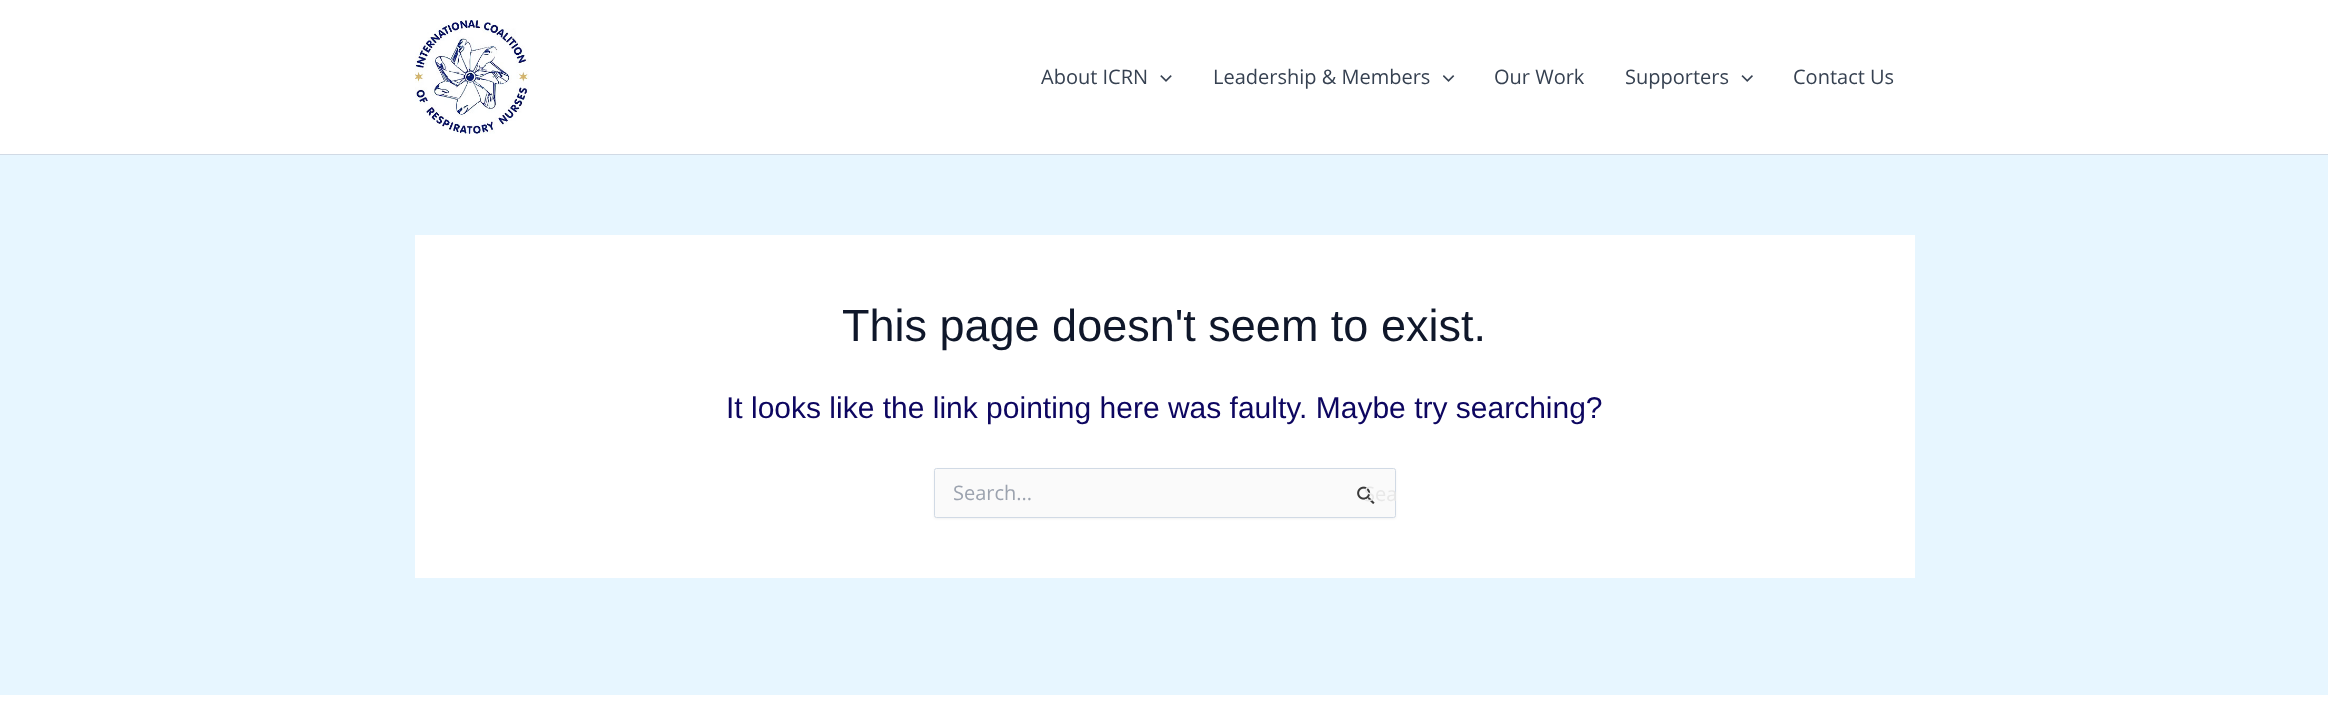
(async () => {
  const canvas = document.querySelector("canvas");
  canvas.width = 2328;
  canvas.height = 705;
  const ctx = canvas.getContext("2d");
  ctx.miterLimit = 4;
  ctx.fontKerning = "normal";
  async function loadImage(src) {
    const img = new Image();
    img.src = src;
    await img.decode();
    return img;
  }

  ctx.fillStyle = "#e7f6ff";
  ctx.fillRect(0, 0, 2328, 705);
  ctx.fillStyle = "#ffffff";
  ctx.fillRect(0, 0, 2328, 154);
  ctx.fillStyle = "#d1dae5";
  ctx.fillRect(0, 154, 2328, 1);
  ctx.drawImage(await loadImage("img/1.png"), 415, 20, 114, 114);
  ctx.drawImage(await loadImage("img/2.png"), 1160, 75, 12, 7);
  ctx.drawImage(await loadImage("img/3.png"), 1443, 75, 12, 7);
  ctx.drawImage(await loadImage("img/4.png"), 1741, 75, 12, 7);
  ctx.fillStyle = "#ffffff";
  ctx.fillRect(415, 235, 1500, 343);
  ctx.fillStyle = "rgba(0, 0, 0, 0.05)";
  ctx.filter = "blur(1px)";
  ctx.beginPath();
  ctx.roundRect(934, 469, 462, 50, 2.5);
  ctx.fill();
  ctx.filter = "none";
  ctx.fillStyle = "#fafafa";
  ctx.beginPath();
  ctx.roundRect(934.5, 468.5, 461, 49, 2);
  ctx.fill();
  ctx.strokeStyle = "#d1dae5";
  ctx.stroke();
  ctx.drawImage(await loadImage("img/5.png"), 1357, 486, 18, 18);
  ctx.fillStyle = "#ffffff";
  ctx.fillRect(0, 695, 2328, 10);
  ctx.font = "20px Open Sans";
  ctx.fillStyle = "#364151";
  for (const [text, x, y] of [
    ["About ICRN", 1041, 84],
    ["Leadership & Members", 1213, 84],
    ["Our Work", 1494, 84],
    ["Supporters", 1625, 84],
    ["Contact Us", 1793, 84],
  ]) {
    ctx.fillText(text, x, y);
  }
  ctx.font = "45px Liberation Sans";
  ctx.fillStyle = "#0f172a";
  ctx.fillText("This page doesn't seem to exist.", 842, 341);
  ctx.font = "30px Liberation Sans";
  ctx.fillStyle = "#0d0660";
  ctx.fillText("It looks like the link pointing here was faulty. Maybe try searching?", 726, 418);
  ctx.font = "20px Open Sans";
  ctx.fillStyle = "#9ca3af";
  ctx.fillText("Search...", 953, 500);
  ctx.fillStyle = "#e8e8e8";
  ctx.fillText("Sea", 1364, 501);
})();
